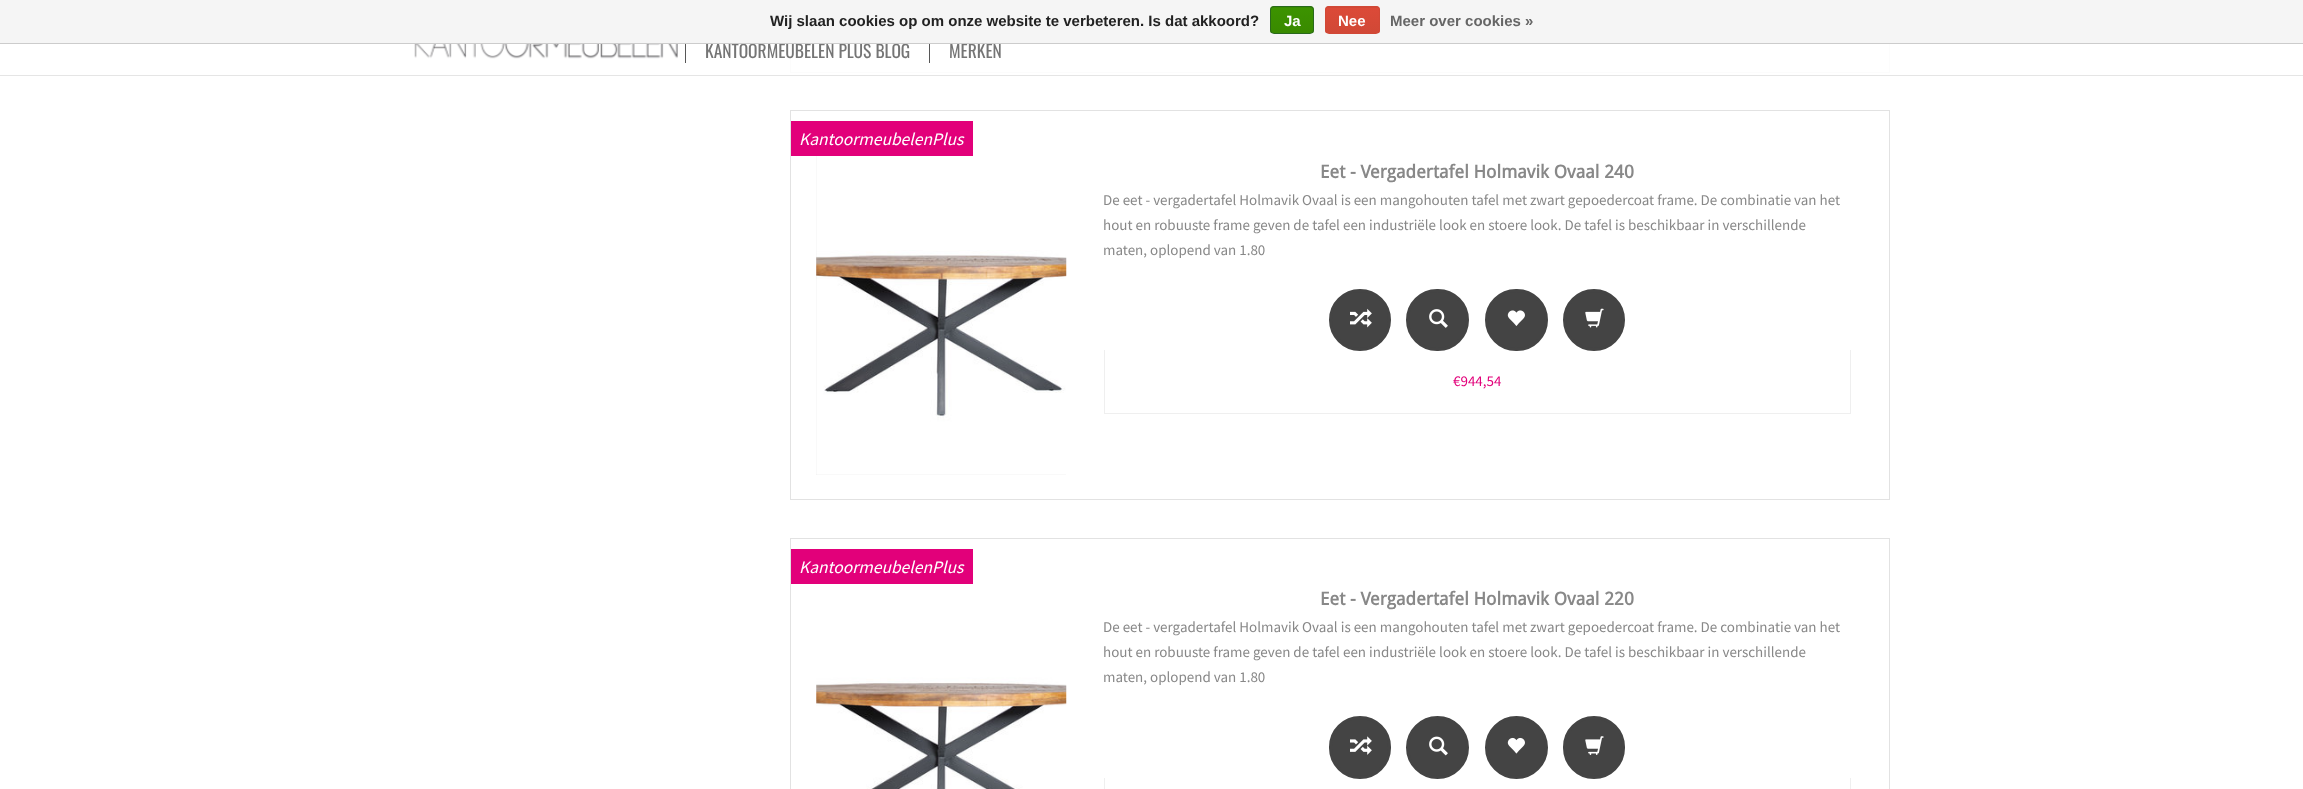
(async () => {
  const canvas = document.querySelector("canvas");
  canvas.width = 2303;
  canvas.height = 789;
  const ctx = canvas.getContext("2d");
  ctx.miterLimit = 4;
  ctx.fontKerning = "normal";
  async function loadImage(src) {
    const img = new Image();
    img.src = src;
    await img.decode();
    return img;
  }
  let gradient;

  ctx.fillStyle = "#ffffff";
  ctx.fillRect(0, 0, 2303, 789);
  ctx.fillStyle = "#575757";
  ctx.fillRect(685, 38, 1, 25);
  ctx.strokeStyle = "#fcfcfc";
  ctx.strokeRect(790.5, -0.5, 1099, 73);
  ctx.fillRect(929, 38, 1, 25);
  ctx.fillStyle = "#f5f5f5";
  ctx.fillRect(0, 0, 2303, 43);
  ctx.save();
  ctx.beginPath();
  ctx.roundRect(1270, 6, 44, 28, 4);
  ctx.clip();
  gradient = ctx.createLinearGradient(1292, -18, 1292, 7.5);
  gradient.addColorStop(0, "#3c9300");
  gradient.addColorStop(1, "#398a00");
  ctx.fillStyle = gradient;
  ctx.fillRect(1270, 6, 44, 2);
  gradient = ctx.createLinearGradient(1292, 7.5, 1292, 33);
  gradient.addColorStop(0, "#3c9300");
  gradient.addColorStop(1, "#398a00");
  ctx.fillStyle = gradient;
  ctx.fillRect(1270, 8, 44, 25);
  ctx.restore();
  ctx.beginPath();
  ctx.roundRect(1270.5, 6.5, 43, 27, 3.5);
  ctx.strokeStyle = "#29691d";
  ctx.stroke();
  ctx.save();
  ctx.beginPath();
  ctx.roundRect(1325, 6, 55, 28, 4);
  ctx.clip();
  gradient = ctx.createLinearGradient(1353, -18, 1353, 7.5);
  gradient.addColorStop(0, "#dc4a38");
  gradient.addColorStop(1, "#d14836");
  ctx.fillStyle = gradient;
  ctx.fillRect(1325, 6, 55, 2);
  gradient = ctx.createLinearGradient(1353, 7.5, 1353, 33);
  gradient.addColorStop(0, "#dc4a38");
  gradient.addColorStop(1, "#d14836");
  ctx.fillStyle = gradient;
  ctx.fillRect(1325, 8, 55, 25);
  ctx.restore();
  ctx.beginPath();
  ctx.roundRect(1325.5, 6.5, 54, 27, 3.5);
  ctx.strokeStyle = "#d14836";
  ctx.stroke();
  ctx.fillStyle = "#e5e5e5";
  ctx.fillRect(0, 75, 2303, 1);
  ctx.drawImage(await loadImage("img/1.png"), 414, 44, 264, 15);
  ctx.strokeStyle = "#e2e2e2";
  ctx.strokeRect(790.5, 110.5, 1099, 389);
  ctx.fillRect(816, 156, 250, 319);
  ctx.drawImage(await loadImage("img/2.png"), 816, 136, 251, 339);
  ctx.fillStyle = "#e2007a";
  ctx.fillRect(791, 121, 182, 35);
  ctx.fillStyle = "#444444";
  ctx.beginPath();
  ctx.arc(1360, 320, 29.5, 0, Math.PI * 2);
  ctx.fill();
  ctx.strokeStyle = "#444444";
  ctx.lineWidth = 3;
  ctx.stroke();
  ctx.drawImage(await loadImage("img/3.png"), 1350, 308, 22, 20);
  ctx.beginPath();
  ctx.roundRect(1407.5, 290.5, 60, 59, 29.5);
  ctx.fill();
  ctx.stroke();
  ctx.drawImage(await loadImage("img/4.png"), 1429, 309, 19, 19);
  ctx.beginPath();
  ctx.roundRect(1486.5, 290.5, 60, 59, 29.5);
  ctx.fill();
  ctx.stroke();
  ctx.drawImage(await loadImage("img/5.png"), 1507, 310, 18, 16);
  ctx.beginPath();
  ctx.arc(1594, 320, 29.5, 0, Math.PI * 2);
  ctx.fill();
  ctx.stroke();
  ctx.drawImage(await loadImage("img/6.png"), 1585, 308, 19, 20);
  for (const [x, y, w, h, color] of [
    [1850, 350, 1, 64, "#efefef"],
    [1104, 413, 747, 1, "#efefef"],
    [1104, 350, 1, 64, "#efefef"],
  ]) {
    ctx.fillStyle = color;
    ctx.fillRect(x, y, w, h);
  }
  ctx.strokeStyle = "#e2e2e2";
  ctx.lineWidth = 1;
  ctx.strokeRect(790.5, 538.5, 1099, 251);
  ctx.drawImage(await loadImage("img/7.png"), 816, 564, 251, 225);
  ctx.fillStyle = "#e2007a";
  ctx.fillRect(791, 549, 182, 35);
  ctx.fillStyle = "#444444";
  ctx.beginPath();
  ctx.roundRect(1330.5, 717.5, 59, 60, 29.5);
  ctx.fill();
  ctx.strokeStyle = "#444444";
  ctx.lineWidth = 3;
  ctx.stroke();
  ctx.drawImage(await loadImage("img/8.png"), 1350, 736, 22, 19);
  ctx.beginPath();
  ctx.arc(1437.5, 747.5, 30, 0, Math.PI * 2);
  ctx.fill();
  ctx.stroke();
  ctx.drawImage(await loadImage("img/9.png"), 1429, 736, 19, 20);
  ctx.beginPath();
  ctx.arc(1516.5, 747.5, 30, 0, Math.PI * 2);
  ctx.fill();
  ctx.stroke();
  ctx.drawImage(await loadImage("img/10.png"), 1507, 737, 18, 17);
  ctx.beginPath();
  ctx.roundRect(1564.5, 717.5, 59, 60, 29.5);
  ctx.fill();
  ctx.stroke();
  ctx.drawImage(await loadImage("img/11.png"), 1585, 736, 19, 19);
  ctx.fillStyle = "#efefef";
  ctx.fillRect(1850, 778, 1, 11);
  ctx.fillRect(1104, 778, 1, 11);
  ctx.font = "bold 15px Liberation Sans";
  ctx.fillStyle = "#222222";
  ctx.fillText("Wij slaan cookies op om onze website te verbeteren. Is dat akkoord?", 770, 26);
  ctx.fillStyle = "#ffffff";
  ctx.fillText("Ja", 1284, 26);
  ctx.fillText("Nee", 1338, 26);
  ctx.fillStyle = "#666666";
  ctx.fillText("Meer over cookies »", 1390, 26);
  ctx.font = "17.5px Oswald";
  ctx.fillStyle = "#757575";
  ctx.fillText("KANTOORMEUBELEN PLUS BLOG", 705, 58);
  ctx.fillText("MERKEN", 949, 58);
  ctx.fillStyle = "#cccccc";
  ctx.fillRect(0, 43, 2303, 1);
  ctx.font = "italic 17.5px Source Sans Pro";
  ctx.fillStyle = "#ffffff";
  ctx.fillText("KantoormeubelenPlus", 799, 145);
  ctx.font = "bold 18px Droid Sans";
  ctx.fillStyle = "#888888";
  ctx.fillText("Eet - Vergadertafel Holmavik Ovaal 240", 1320, 178);
  ctx.font = "15px Source Sans Pro";
  for (const [text, x, y] of [
    ["De eet - vergadertafel Holmavik Ovaal is een mangohouten tafel met zwart gepoedercoat frame. De combinatie van het", 1103, 205],
    ["hout en robuuste frame geven de tafel een industriële look en stoere look. De tafel is beschikbaar in verschillende", 1103, 230],
    ["maten, oplopend van 1.80", 1103, 255],
  ]) {
    ctx.fillText(text, x, y);
  }
  ctx.fillStyle = "#e2007a";
  ctx.fillText("€944,54", 1453, 386);
  ctx.font = "italic 17.5px Source Sans Pro";
  ctx.fillStyle = "#ffffff";
  ctx.fillText("KantoormeubelenPlus", 799, 573);
  ctx.font = "bold 18px Droid Sans";
  ctx.fillStyle = "#888888";
  ctx.fillText("Eet - Vergadertafel Holmavik Ovaal 220", 1320, 605);
  ctx.font = "15px Source Sans Pro";
  for (const [text, x, y] of [
    ["De eet - vergadertafel Holmavik Ovaal is een mangohouten tafel met zwart gepoedercoat frame. De combinatie van het", 1103, 632],
    ["hout en robuuste frame geven de tafel een industriële look en stoere look. De tafel is beschikbaar in verschillende", 1103, 657],
    ["maten, oplopend van 1.80", 1103, 682],
  ]) {
    ctx.fillText(text, x, y);
  }
})();
